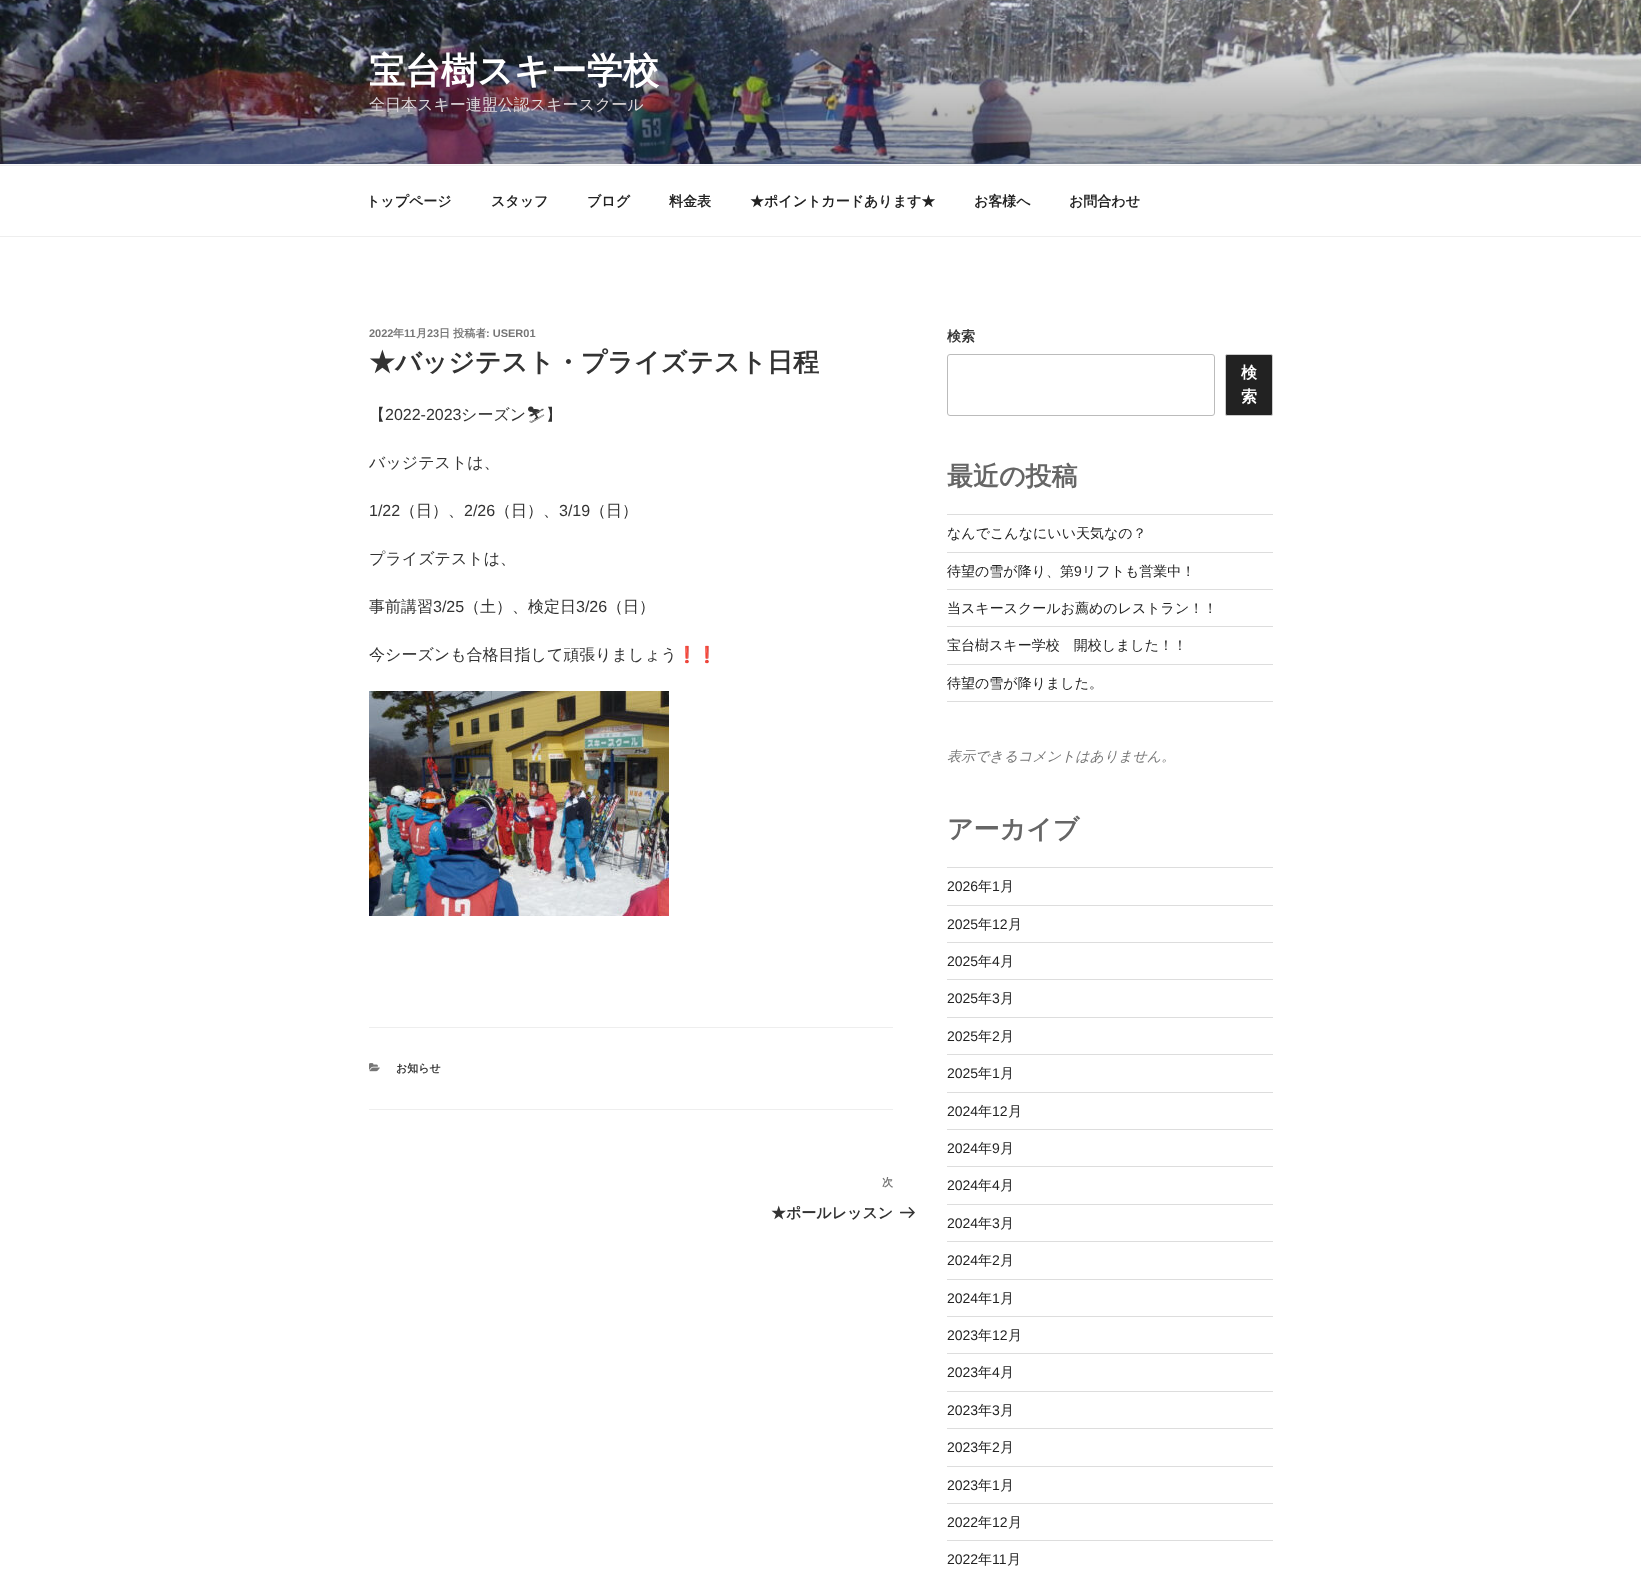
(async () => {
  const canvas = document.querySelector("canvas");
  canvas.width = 1641;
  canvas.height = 1573;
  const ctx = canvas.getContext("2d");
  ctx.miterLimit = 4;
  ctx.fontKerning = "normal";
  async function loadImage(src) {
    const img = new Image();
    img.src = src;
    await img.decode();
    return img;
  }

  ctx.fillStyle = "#ffffff";
  ctx.fillRect(0, 0, 1641, 1573);
  ctx.fillStyle = "#fafafa";
  ctx.fillRect(0, 164, 1641, 1);
  ctx.drawImage(await loadImage("img/1.png"), 0, 0, 1641, 164);
  ctx.fillStyle = "#eeeeee";
  ctx.fillRect(0, 165, 1641, 1);
  ctx.fillRect(0, 236, 1641, 1);
  ctx.drawImage(await loadImage("img/2.png"), 369, 691, 300, 225);
  ctx.fillRect(369, 1027, 524, 1);
  ctx.fillRect(369, 1109, 524, 1);
  ctx.drawImage(await loadImage("img/3.png"), 369, 1063, 11, 9);
  ctx.drawImage(await loadImage("img/4.png"), 900, 1207, 15, 12);
  ctx.beginPath();
  ctx.roundRect(947.5, 354.5, 267, 61, 2.5);
  ctx.strokeStyle = "#bbbbbb";
  ctx.stroke();
  ctx.fillStyle = "#222222";
  ctx.beginPath();
  ctx.roundRect(1225.5, 354.5, 47, 61, 1.5);
  ctx.fill();
  ctx.strokeStyle = "#cccccc";
  ctx.stroke();
  for (const [x, y, w, h, color] of [
    [947, 514, 326, 1, "#dddddd"],
    [947, 552, 326, 1, "#dddddd"],
    [947, 589, 326, 1, "#dddddd"],
    [947, 626, 326, 1, "#dddddd"],
    [947, 664, 326, 1, "#dddddd"],
    [947, 701, 326, 1, "#dddddd"],
    [947, 867, 326, 1, "#dddddd"],
    [947, 905, 326, 1, "#dddddd"],
    [947, 942, 326, 1, "#dddddd"],
    [947, 979, 326, 1, "#dddddd"],
    [947, 1017, 326, 1, "#dddddd"],
    [947, 1054, 326, 1, "#dddddd"],
    [947, 1092, 326, 1, "#dddddd"],
    [947, 1129, 326, 1, "#dddddd"],
    [947, 1166, 326, 1, "#dddddd"],
    [947, 1204, 326, 1, "#dddddd"],
    [947, 1241, 326, 1, "#dddddd"],
    [947, 1279, 326, 1, "#dddddd"],
    [947, 1316, 326, 1, "#dddddd"],
    [947, 1353, 326, 1, "#dddddd"],
    [947, 1391, 326, 1, "#dddddd"],
    [947, 1428, 326, 1, "#dddddd"],
    [947, 1466, 326, 1, "#dddddd"],
    [947, 1503, 326, 1, "#dddddd"],
    [947, 1540, 326, 1, "#dddddd"],
  ]) {
    ctx.fillStyle = color;
    ctx.fillRect(x, y, w, h);
  }
  ctx.font = "bold 36px WenQuanYi Zen Hei";
  ctx.fillStyle = "#ffffff";
  ctx.fillText("宝台樹スキー学校", 369, 83);
  ctx.font = "500 16px WenQuanYi Zen Hei";
  ctx.fillStyle = "#ded8db";
  ctx.fillText("全日本スキー連盟公認スキースクール", 369, 110);
  ctx.font = "bold 14px WenQuanYi Zen Hei";
  ctx.fillStyle = "#222222";
  for (const [text, x, y] of [
    ["トップページ", 366, 206],
    ["スタッフ", 491, 206],
    ["ブログ", 587, 206],
    ["料金表", 669, 206],
    ["★ポイントカードあります★", 750, 206],
    ["お客様へ", 974, 206],
    ["お問合わせ", 1069, 206],
  ]) {
    ctx.fillText(text, x, y);
  }
  ctx.font = "bold 11px Liberation Sans";
  ctx.fillStyle = "#767676";
  ctx.fillText("2022", 369, 337);
  ctx.font = "bold 11px WenQuanYi Zen Hei";
  ctx.fillText("年", 393, 337);
  ctx.font = "bold 11px Liberation Sans";
  ctx.fillText("11", 404, 337);
  ctx.font = "bold 11px WenQuanYi Zen Hei";
  ctx.fillText("月", 416, 337);
  ctx.font = "bold 11px Liberation Sans";
  ctx.fillText("23", 427, 337);
  ctx.font = "bold 11px WenQuanYi Zen Hei";
  ctx.fillText("日 投稿者", 439, 337);
  ctx.font = "bold 11px Liberation Sans";
  ctx.fillText(": USER01", 486, 337);
  ctx.font = "bold 26px WenQuanYi Zen Hei";
  ctx.fillStyle = "#333333";
  ctx.fillText("★バッジテスト・プライズテスト日程", 369, 371);
  ctx.font = "500 16px WenQuanYi Zen Hei";
  ctx.fillText("【", 369, 420);
  ctx.font = "16px Liberation Sans";
  ctx.fillText("2022-2023", 385, 420);
  ctx.font = "500 16px WenQuanYi Zen Hei";
  ctx.fillText("シーズン", 461, 420);
  ctx.font = "16px Noto Emoji";
  ctx.fillText("⛷", 526, 420);
  ctx.font = "500 16px WenQuanYi Zen Hei";
  ctx.fillText("】", 546, 420);
  ctx.fillText("バッジテストは、", 369, 468);
  ctx.font = "16px Liberation Sans";
  ctx.fillText("1/22", 369, 516);
  ctx.font = "500 16px WenQuanYi Zen Hei";
  ctx.fillText("（日）、", 400, 516);
  ctx.font = "16px Liberation Sans";
  ctx.fillText("2/26", 464, 516);
  ctx.font = "500 16px WenQuanYi Zen Hei";
  ctx.fillText("（日）、", 495, 516);
  ctx.font = "16px Liberation Sans";
  ctx.fillText("3/19", 559, 516);
  ctx.font = "500 16px WenQuanYi Zen Hei";
  for (const [text, x, y] of [
    ["（日）", 590, 516],
    ["プライズテストは、", 369, 564],
    ["事前講習", 369, 612],
  ]) {
    ctx.fillText(text, x, y);
  }
  ctx.font = "16px Liberation Sans";
  ctx.fillText("3/25", 433, 612);
  ctx.font = "500 16px WenQuanYi Zen Hei";
  ctx.fillText("（土）、検定日", 464, 612);
  ctx.font = "16px Liberation Sans";
  ctx.fillText("3/26", 576, 612);
  ctx.font = "500 16px WenQuanYi Zen Hei";
  ctx.fillText("（日）", 607, 612);
  ctx.fillText("今シーズンも合格目指して頑張りましょう", 369, 660);
  ctx.font = "16px Noto Color Emoji";
  ctx.fillText("❗️❗️", 677, 660);
  ctx.font = "bold 11px WenQuanYi Zen Hei";
  ctx.fillText("お知らせ", 396, 1072);
  ctx.fillStyle = "#767676";
  ctx.fillText("次", 882, 1186);
  ctx.font = "bold 15px WenQuanYi Zen Hei";
  ctx.fillStyle = "#333333";
  ctx.fillText("★ポールレッスン", 771, 1218);
  ctx.font = "bold 14px WenQuanYi Zen Hei";
  ctx.fillText("検索", 947, 341);
  ctx.font = "bold 16px WenQuanYi Zen Hei";
  ctx.fillStyle = "#ffffff";
  ctx.fillText("検", 1241, 378);
  ctx.fillText("索", 1241, 402);
  ctx.font = "bold 26px WenQuanYi Zen Hei";
  ctx.fillStyle = "#666666";
  ctx.fillText("最近の投稿", 947, 485);
  ctx.font = "500 14px WenQuanYi Zen Hei";
  ctx.fillStyle = "#222222";
  ctx.fillText("なんでこんなにいい天気なの？", 947, 538);
  ctx.fillText("待望の雪が降り、第", 947, 576);
  ctx.font = "14px Liberation Sans";
  ctx.fillText("9", 1074, 576);
  ctx.font = "500 14px WenQuanYi Zen Hei";
  for (const [text, x, y] of [
    ["リフトも営業中！", 1082, 576],
    ["当スキースクールお薦めのレストラン！！", 947, 613],
    ["宝台樹スキー学校　開校しました！！", 947, 650],
    ["待望の雪が降りました。", 947, 688],
  ]) {
    ctx.fillText(text, x, y);
  }
  ctx.font = "italic 500 14px WenQuanYi Zen Hei";
  ctx.fillStyle = "#767676";
  ctx.fillText("表示できるコメントはありません。", 947, 761);
  ctx.font = "bold 26px WenQuanYi Zen Hei";
  ctx.fillStyle = "#666666";
  ctx.fillText("アーカイブ", 947, 838);
  ctx.font = "14px Liberation Sans";
  ctx.fillStyle = "#222222";
  ctx.fillText("2026", 947, 891);
  ctx.font = "500 14px WenQuanYi Zen Hei";
  ctx.fillText("年", 978, 891);
  ctx.font = "14px Liberation Sans";
  ctx.fillText("1", 992, 891);
  ctx.font = "500 14px WenQuanYi Zen Hei";
  ctx.fillText("月", 1000, 891);
  ctx.font = "14px Liberation Sans";
  ctx.fillText("2025", 947, 929);
  ctx.font = "500 14px WenQuanYi Zen Hei";
  ctx.fillText("年", 978, 929);
  ctx.font = "14px Liberation Sans";
  ctx.fillText("12", 992, 929);
  ctx.font = "500 14px WenQuanYi Zen Hei";
  ctx.fillText("月", 1008, 929);
  ctx.font = "14px Liberation Sans";
  ctx.fillText("2025", 947, 966);
  ctx.font = "500 14px WenQuanYi Zen Hei";
  ctx.fillText("年", 978, 966);
  ctx.font = "14px Liberation Sans";
  ctx.fillText("4", 992, 966);
  ctx.font = "500 14px WenQuanYi Zen Hei";
  ctx.fillText("月", 1000, 966);
  ctx.font = "14px Liberation Sans";
  ctx.fillText("2025", 947, 1003);
  ctx.font = "500 14px WenQuanYi Zen Hei";
  ctx.fillText("年", 978, 1003);
  ctx.font = "14px Liberation Sans";
  ctx.fillText("3", 992, 1003);
  ctx.font = "500 14px WenQuanYi Zen Hei";
  ctx.fillText("月", 1000, 1003);
  ctx.font = "14px Liberation Sans";
  ctx.fillText("2025", 947, 1041);
  ctx.font = "500 14px WenQuanYi Zen Hei";
  ctx.fillText("年", 978, 1041);
  ctx.font = "14px Liberation Sans";
  ctx.fillText("2", 992, 1041);
  ctx.font = "500 14px WenQuanYi Zen Hei";
  ctx.fillText("月", 1000, 1041);
  ctx.font = "14px Liberation Sans";
  ctx.fillText("2025", 947, 1078);
  ctx.font = "500 14px WenQuanYi Zen Hei";
  ctx.fillText("年", 978, 1078);
  ctx.font = "14px Liberation Sans";
  ctx.fillText("1", 992, 1078);
  ctx.font = "500 14px WenQuanYi Zen Hei";
  ctx.fillText("月", 1000, 1078);
  ctx.font = "14px Liberation Sans";
  ctx.fillText("2024", 947, 1116);
  ctx.font = "500 14px WenQuanYi Zen Hei";
  ctx.fillText("年", 978, 1116);
  ctx.font = "14px Liberation Sans";
  ctx.fillText("12", 992, 1116);
  ctx.font = "500 14px WenQuanYi Zen Hei";
  ctx.fillText("月", 1008, 1116);
  ctx.font = "14px Liberation Sans";
  ctx.fillText("2024", 947, 1153);
  ctx.font = "500 14px WenQuanYi Zen Hei";
  ctx.fillText("年", 978, 1153);
  ctx.font = "14px Liberation Sans";
  ctx.fillText("9", 992, 1153);
  ctx.font = "500 14px WenQuanYi Zen Hei";
  ctx.fillText("月", 1000, 1153);
  ctx.font = "14px Liberation Sans";
  ctx.fillText("2024", 947, 1190);
  ctx.font = "500 14px WenQuanYi Zen Hei";
  ctx.fillText("年", 978, 1190);
  ctx.font = "14px Liberation Sans";
  ctx.fillText("4", 992, 1190);
  ctx.font = "500 14px WenQuanYi Zen Hei";
  ctx.fillText("月", 1000, 1190);
  ctx.font = "14px Liberation Sans";
  ctx.fillText("2024", 947, 1228);
  ctx.font = "500 14px WenQuanYi Zen Hei";
  ctx.fillText("年", 978, 1228);
  ctx.font = "14px Liberation Sans";
  ctx.fillText("3", 992, 1228);
  ctx.font = "500 14px WenQuanYi Zen Hei";
  ctx.fillText("月", 1000, 1228);
  ctx.font = "14px Liberation Sans";
  ctx.fillText("2024", 947, 1265);
  ctx.font = "500 14px WenQuanYi Zen Hei";
  ctx.fillText("年", 978, 1265);
  ctx.font = "14px Liberation Sans";
  ctx.fillText("2", 992, 1265);
  ctx.font = "500 14px WenQuanYi Zen Hei";
  ctx.fillText("月", 1000, 1265);
  ctx.font = "14px Liberation Sans";
  ctx.fillText("2024", 947, 1303);
  ctx.font = "500 14px WenQuanYi Zen Hei";
  ctx.fillText("年", 978, 1303);
  ctx.font = "14px Liberation Sans";
  ctx.fillText("1", 992, 1303);
  ctx.font = "500 14px WenQuanYi Zen Hei";
  ctx.fillText("月", 1000, 1303);
  ctx.font = "14px Liberation Sans";
  ctx.fillText("2023", 947, 1340);
  ctx.font = "500 14px WenQuanYi Zen Hei";
  ctx.fillText("年", 978, 1340);
  ctx.font = "14px Liberation Sans";
  ctx.fillText("12", 992, 1340);
  ctx.font = "500 14px WenQuanYi Zen Hei";
  ctx.fillText("月", 1008, 1340);
  ctx.font = "14px Liberation Sans";
  ctx.fillText("2023", 947, 1377);
  ctx.font = "500 14px WenQuanYi Zen Hei";
  ctx.fillText("年", 978, 1377);
  ctx.font = "14px Liberation Sans";
  ctx.fillText("4", 992, 1377);
  ctx.font = "500 14px WenQuanYi Zen Hei";
  ctx.fillText("月", 1000, 1377);
  ctx.font = "14px Liberation Sans";
  ctx.fillText("2023", 947, 1415);
  ctx.font = "500 14px WenQuanYi Zen Hei";
  ctx.fillText("年", 978, 1415);
  ctx.font = "14px Liberation Sans";
  ctx.fillText("3", 992, 1415);
  ctx.font = "500 14px WenQuanYi Zen Hei";
  ctx.fillText("月", 1000, 1415);
  ctx.font = "14px Liberation Sans";
  ctx.fillText("2023", 947, 1452);
  ctx.font = "500 14px WenQuanYi Zen Hei";
  ctx.fillText("年", 978, 1452);
  ctx.font = "14px Liberation Sans";
  ctx.fillText("2", 992, 1452);
  ctx.font = "500 14px WenQuanYi Zen Hei";
  ctx.fillText("月", 1000, 1452);
  ctx.font = "14px Liberation Sans";
  ctx.fillText("2023", 947, 1490);
  ctx.font = "500 14px WenQuanYi Zen Hei";
  ctx.fillText("年", 978, 1490);
  ctx.font = "14px Liberation Sans";
  ctx.fillText("1", 992, 1490);
  ctx.font = "500 14px WenQuanYi Zen Hei";
  ctx.fillText("月", 1000, 1490);
  ctx.font = "14px Liberation Sans";
  ctx.fillText("2022", 947, 1527);
  ctx.font = "500 14px WenQuanYi Zen Hei";
  ctx.fillText("年", 978, 1527);
  ctx.font = "14px Liberation Sans";
  ctx.fillText("12", 992, 1527);
  ctx.font = "500 14px WenQuanYi Zen Hei";
  ctx.fillText("月", 1008, 1527);
  ctx.font = "14px Liberation Sans";
  ctx.fillText("2022", 947, 1564);
  ctx.font = "500 14px WenQuanYi Zen Hei";
  ctx.fillText("年", 978, 1564);
  ctx.font = "14px Liberation Sans";
  ctx.fillText("11", 992, 1564);
  ctx.font = "500 14px WenQuanYi Zen Hei";
  ctx.fillText("月", 1007, 1564);
})();
